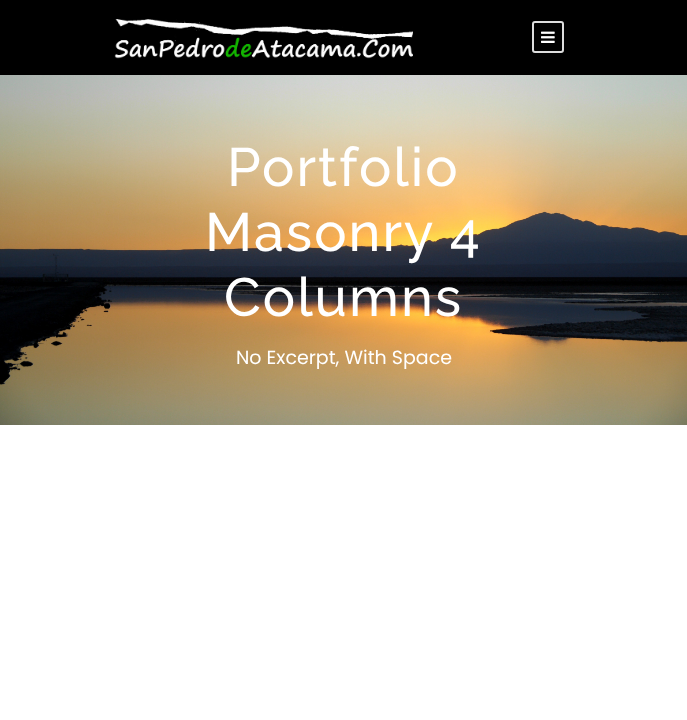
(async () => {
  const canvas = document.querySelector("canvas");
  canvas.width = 687;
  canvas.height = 720;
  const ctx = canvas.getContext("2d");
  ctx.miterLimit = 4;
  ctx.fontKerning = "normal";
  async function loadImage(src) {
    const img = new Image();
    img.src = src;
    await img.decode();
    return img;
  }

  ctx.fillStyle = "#000000";
  ctx.fillRect(0, 0, 687, 720);
  ctx.drawImage(await loadImage("img/1.png"), 114, 19, 299, 40);
  ctx.beginPath();
  ctx.roundRect(533, 22, 30, 30, 2);
  ctx.strokeStyle = "#dddddd";
  ctx.lineWidth = 2;
  ctx.stroke();
  ctx.drawImage(await loadImage("img/2.png"), 541, 31, 14, 12);
  ctx.fillStyle = "#ffffff";
  ctx.fillRect(0, 425, 687, 295);
  ctx.drawImage(await loadImage("img/3.png"), 0, 75, 687, 350);
  ctx.letterSpacing = "2px";
  ctx.font = "500 54px Raleway";
  for (const [text, x, y] of [
    ["Portfolio", 227, 186],
    ["Masonry 4", 205, 251],
    ["Columns", 224, 316],
  ]) {
    ctx.fillText(text, x, y);
  }
  ctx.letterSpacing = "0px";
  ctx.font = "19px Poppins";
  ctx.fillText("No Excerpt, With Space", 236, 364);
})();
